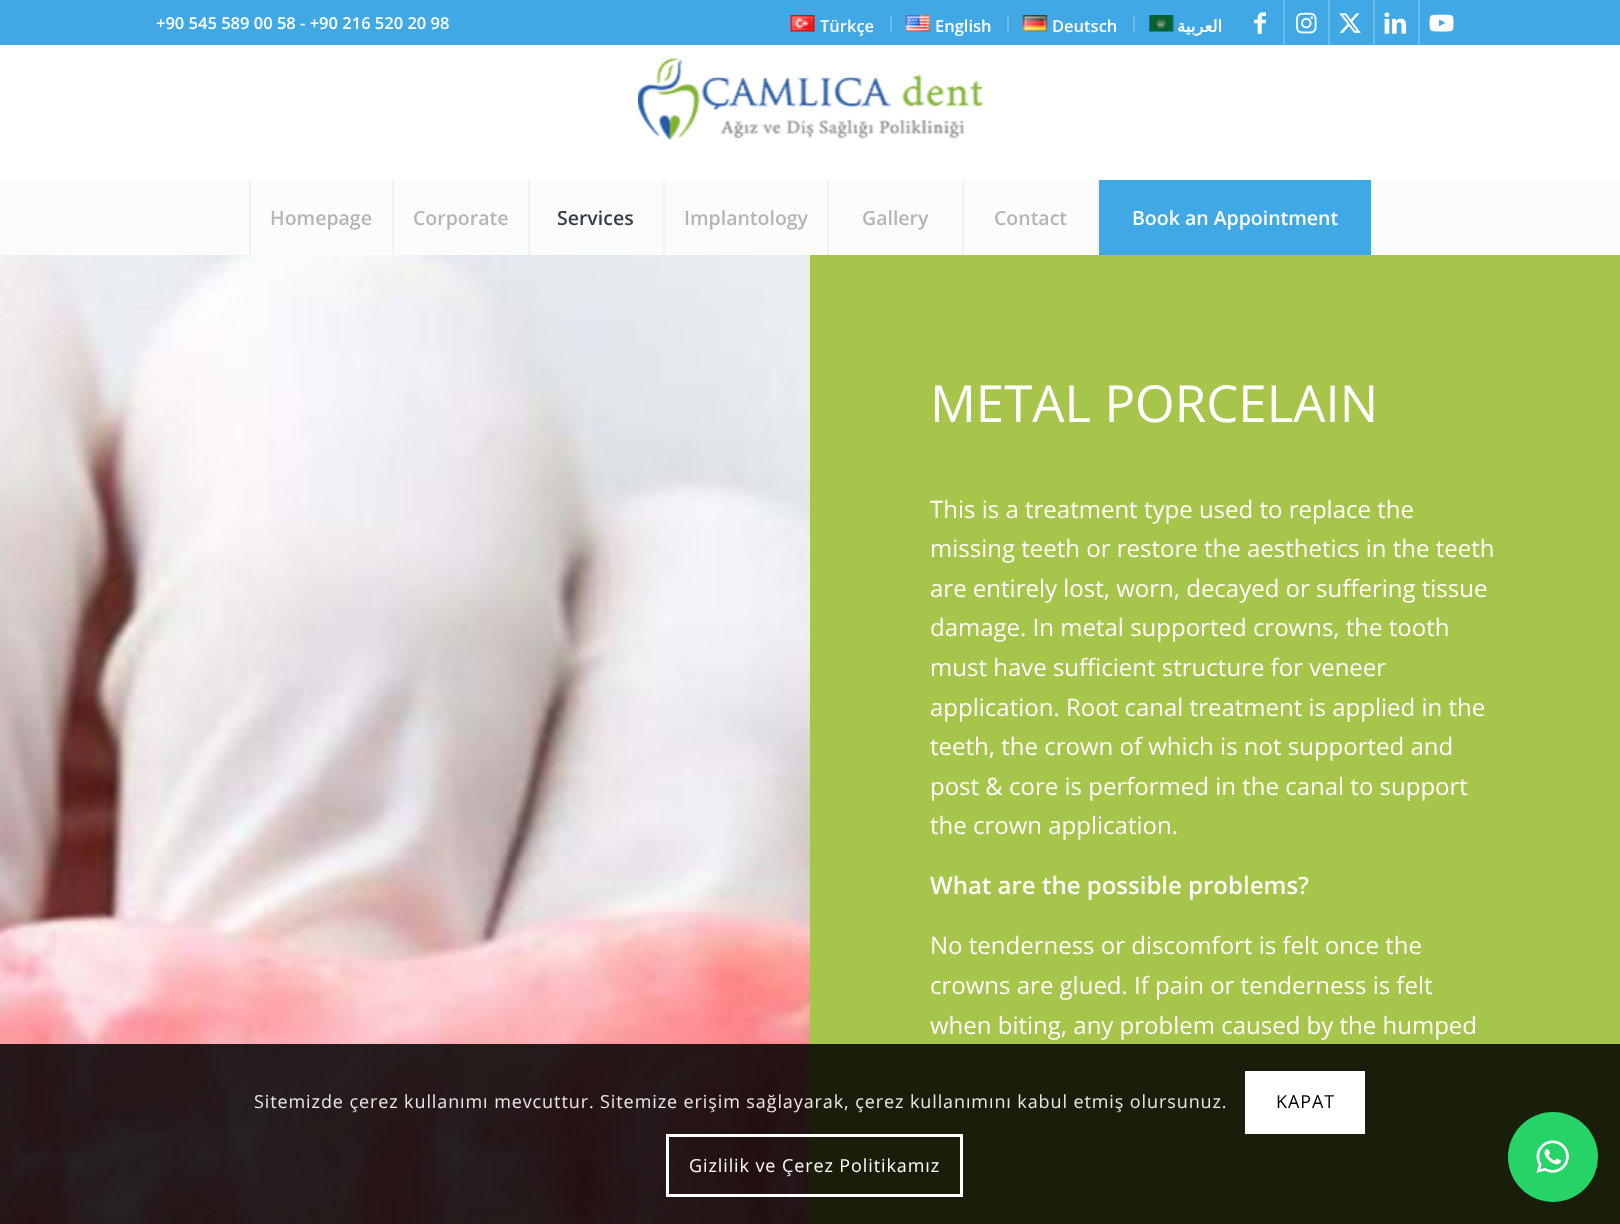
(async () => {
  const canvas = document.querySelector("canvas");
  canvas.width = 1620;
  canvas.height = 1224;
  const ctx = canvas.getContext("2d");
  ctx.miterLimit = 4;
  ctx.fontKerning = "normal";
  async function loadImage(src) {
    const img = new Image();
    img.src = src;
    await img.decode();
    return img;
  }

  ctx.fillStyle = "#ffffff";
  ctx.fillRect(0, 0, 1620, 1224);
  ctx.fillStyle = "#40a8e4";
  ctx.fillRect(0, 0, 1620, 45);
  ctx.fillStyle = "#6abbe6";
  ctx.fillRect(890, 15, 2, 18);
  ctx.drawImage(await loadImage("img/1.png"), 790, 15, 25, 17);
  ctx.fillRect(1007, 15, 2, 18);
  ctx.drawImage(await loadImage("img/2.png"), 905, 15, 26, 17);
  ctx.fillRect(1133, 15, 2, 18);
  ctx.drawImage(await loadImage("img/3.png"), 1022, 15, 26, 17);
  ctx.drawImage(await loadImage("img/4.png"), 1149, 15, 25, 17);
  ctx.fillRect(1283, 0, 2, 45);
  ctx.drawImage(await loadImage("img/5.png"), 1254, 12, 12, 22);
  ctx.fillRect(1328, 0, 2, 45);
  ctx.drawImage(await loadImage("img/6.png"), 1296, 12, 21, 22);
  ctx.fillRect(1373, 0, 2, 45);
  ctx.drawImage(await loadImage("img/7.png"), 1339, 13, 22, 20);
  ctx.fillRect(1418, 0, 2, 45);
  ctx.drawImage(await loadImage("img/8.png"), 1384, 12, 23, 22);
  ctx.drawImage(await loadImage("img/9.png"), 1429, 14, 25, 18);
  ctx.drawImage(await loadImage("img/10.png"), 638, 58, 345, 82);
  for (const [x, y, w, h, color] of [
    [0, 180, 1620, 75, "#fcfcfc"],
    [249, 180, 2, 75, "#f2f2f2"],
    [392, 180, 2, 75, "#f2f2f2"],
    [528, 180, 2, 75, "#f2f2f2"],
    [663, 180, 2, 75, "#f2f2f2"],
    [827, 180, 2, 75, "#f2f2f2"],
    [962, 180, 2, 75, "#f2f2f2"],
    [1099, 180, 272, 75, "#40a8e4"],
    [1097, 180, 2, 75, "#f2f2f2"],
  ]) {
    ctx.fillStyle = color;
    ctx.fillRect(x, y, w, h);
  }
  ctx.drawImage(await loadImage("img/11.png"), 0, 255, 810, 969);
  for (const [x, y, w, h, color] of [
    [810, 255, 810, 969, "#a6c54a"],
    [0, 1044, 1620, 180, "rgba(0, 0, 0, 0.85)"],
    [1245, 1071, 120, 63, "#ffffff"],
  ]) {
    ctx.fillStyle = color;
    ctx.fillRect(x, y, w, h);
  }
  ctx.strokeStyle = "#ffffff";
  ctx.lineWidth = 3;
  ctx.strokeRect(667.5, 1135.5, 294, 60);
  ctx.fillStyle = "#25d366";
  ctx.beginPath();
  ctx.arc(1553, 1157, 45, 0, Math.PI * 2);
  ctx.fill();
  ctx.drawImage(await loadImage("img/12.png"), 1536, 1140, 33, 33);
  ctx.font = "600 16.5px Open Sans";
  ctx.fillStyle = "#ffffff";
  for (const [text, x, y] of [
    ["+90 545 589 00 58 - +90 216 520 20 98", 156, 29],
    ["Türkçe", 820, 32],
    ["English", 935, 32],
    ["Deutsch", 1052, 32],
  ]) {
    ctx.fillText(text, x, y);
  }
  ctx.direction = "rtl";
  ctx.font = "bold 16.5px DejaVu Sans";
  ctx.fillText("العربية", 1222, 32);
  ctx.direction = "ltr";
  ctx.font = "600 19.5px Open Sans";
  ctx.fillStyle = "#b5b5b5";
  ctx.fillText("Homepage", 270, 225);
  ctx.fillText("Corporate", 413, 225);
  ctx.fillStyle = "#333f47";
  ctx.fillText("Services", 557, 225);
  ctx.fillStyle = "#b5b5b5";
  for (const [text, x, y] of [
    ["Implantology", 684, 225],
    ["Gallery", 862, 225],
    ["Contact", 994, 225],
  ]) {
    ctx.fillText(text, x, y);
  }
  ctx.fillStyle = "#ffffff";
  ctx.fillText("Book an Appointment", 1132, 225);
  ctx.font = "51px Open Sans";
  ctx.fillText("METAL PORCELAIN", 930, 422);
  ctx.font = "24px Open Sans";
  for (const [text, x, y] of [
    ["This is a treatment type used to replace the", 930, 518],
    ["missing teeth or restore the aesthetics in the teeth", 930, 557],
    ["are entirely lost, worn, decayed or suffering tissue", 930, 597],
    ["damage. In metal supported crowns, the tooth", 930, 636],
    ["must have sufficient structure for veneer", 930, 676],
    ["application. Root canal treatment is applied in the", 930, 716],
    ["teeth, the crown of which is not supported and", 930, 755],
    ["post & core is performed in the canal to support", 930, 795],
    ["the crown application.", 930, 834],
  ]) {
    ctx.fillText(text, x, y);
  }
  ctx.font = "600 24px Open Sans";
  ctx.fillText("What are the possible problems?", 930, 894);
  ctx.font = "24px Open Sans";
  for (const [text, x, y] of [
    ["No tenderness or discomfort is felt once the", 930, 954],
    ["crowns are glued. If pain or tenderness is felt", 930, 994],
    ["when biting, any problem caused by the humped", 930, 1034],
  ]) {
    ctx.fillText(text, x, y);
  }
  ctx.letterSpacing = "0.9px";
  ctx.font = "18px Open Sans";
  ctx.fillStyle = "#e9e8e7";
  ctx.fillText("Sitemizde çerez kullanımı mevcuttur. Sitemize erişim sağlayarak, çerez kullanımını kabul etmiş olursunuz.", 254, 1108);
  ctx.fillStyle = "#000000";
  ctx.fillText("KAPAT", 1276, 1108);
  ctx.fillStyle = "#ffffff";
  ctx.fillText("Gizlilik ve Çerez Politikamız", 689, 1172);
})();
